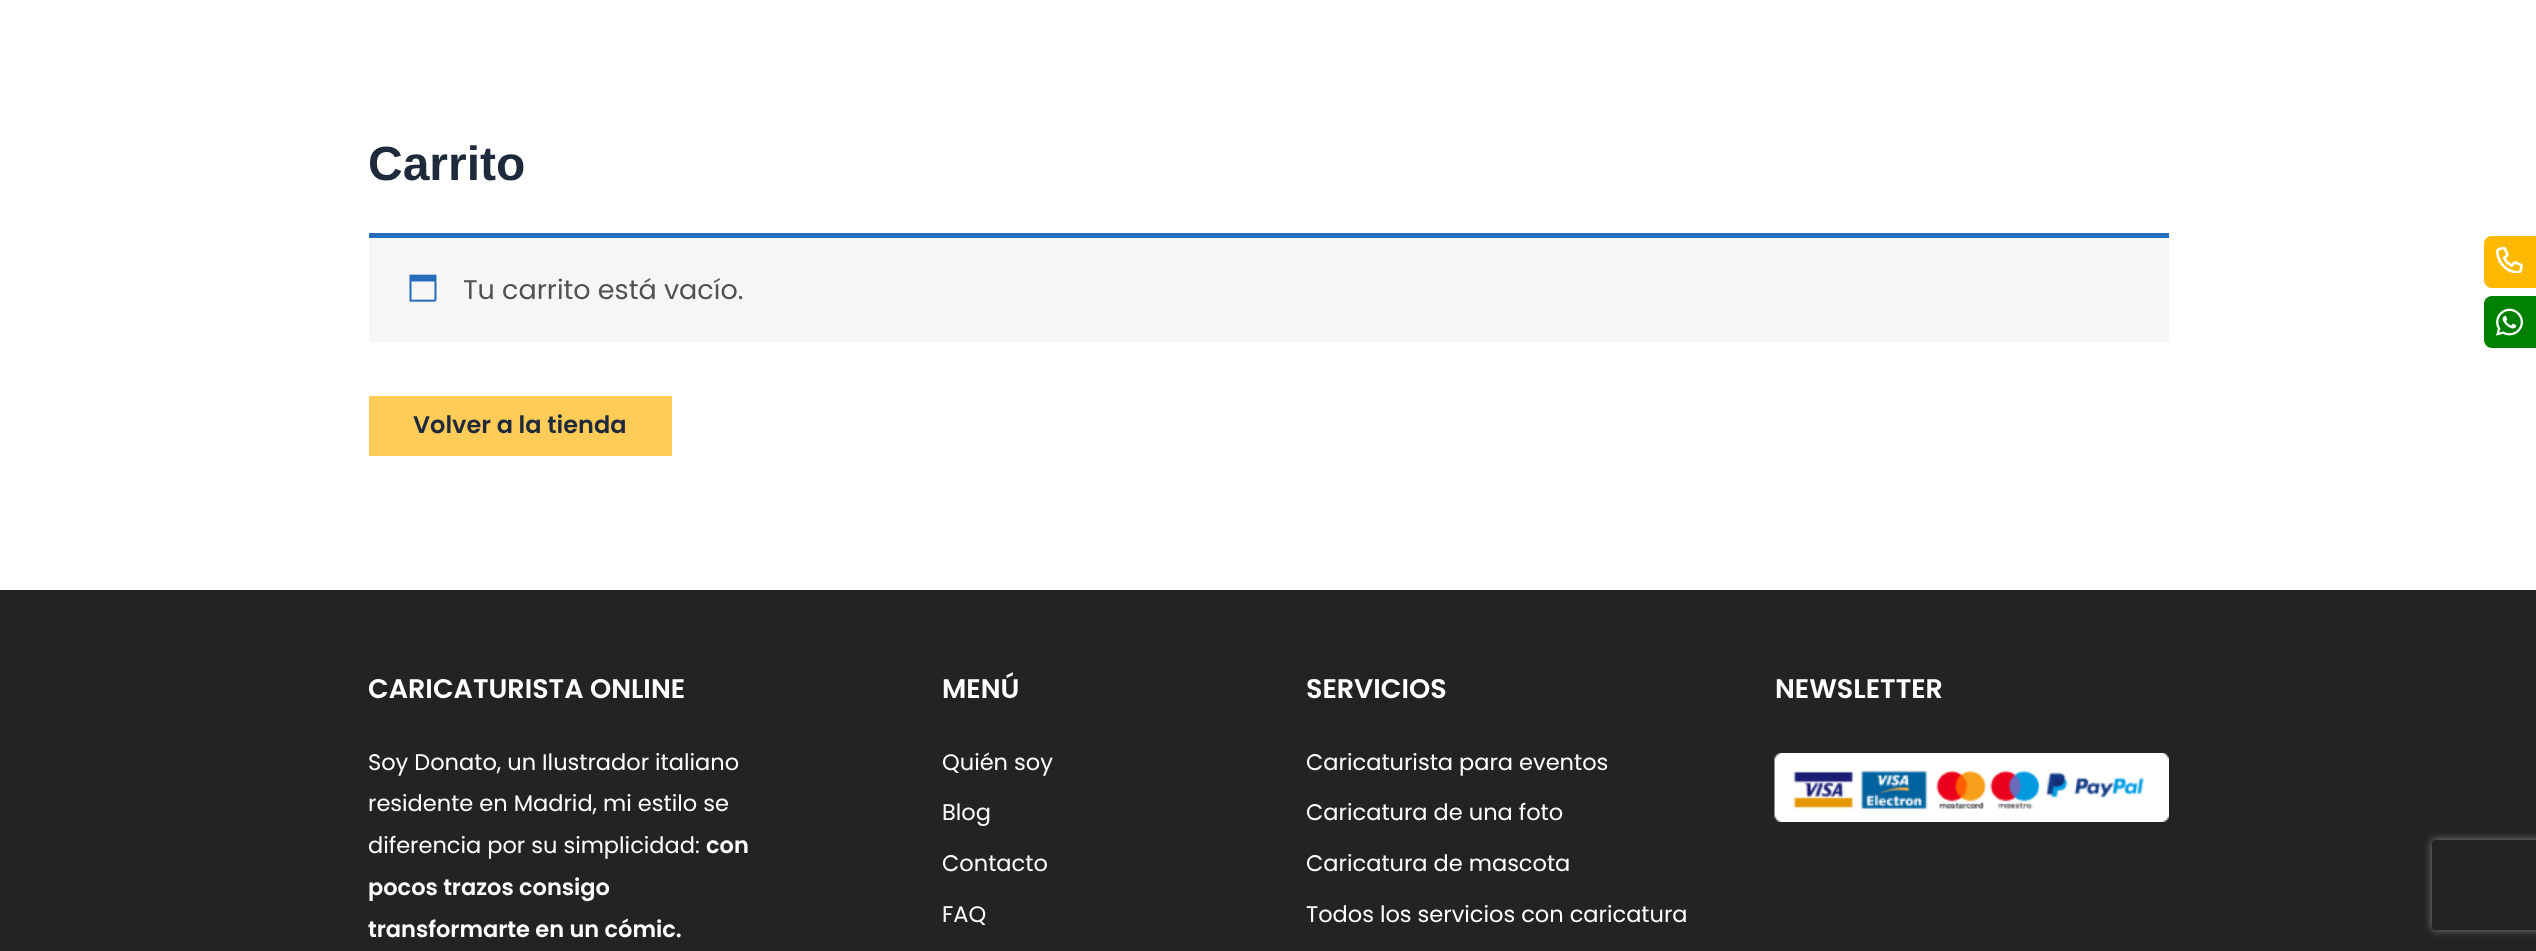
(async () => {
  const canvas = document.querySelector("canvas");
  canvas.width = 2536;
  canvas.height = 951;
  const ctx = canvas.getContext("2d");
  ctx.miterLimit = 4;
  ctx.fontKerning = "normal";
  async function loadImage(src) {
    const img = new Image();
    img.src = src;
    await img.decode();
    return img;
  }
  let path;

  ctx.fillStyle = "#ffffff";
  ctx.fillRect(0, 0, 2536, 951);
  ctx.fillStyle = "#f7f6f7";
  ctx.fillRect(369, 238, 1800, 104);
  ctx.fillStyle = "#236db9";
  ctx.fillRect(369, 233, 1800, 5);
  ctx.drawImage(await loadImage("img/1.png"), 409, 274, 28, 28);
  ctx.fillStyle = "#ffcd57";
  ctx.fillRect(369, 396, 303, 60);
  ctx.fillStyle = "#232323";
  ctx.fillRect(0, 590, 2536, 361);
  ctx.drawImage(await loadImage("img/2.png"), 1774, 753, 395, 69);
  ctx.fillStyle = "#fcb900";
  ctx.beginPath();
  ctx.roundRect(2484, 236, 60, 52, 8);
  ctx.fill();
  ctx.drawImage(await loadImage("img/3.png"), 2496, 246, 27, 27);
  ctx.fillStyle = "#008000";
  ctx.beginPath();
  ctx.roundRect(2484, 296, 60, 52, 8);
  ctx.fill();
  ctx.drawImage(await loadImage("img/4.png"), 2496, 308, 27, 28);
  ctx.save();
  path = new Path2D("M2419 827H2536V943H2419ZM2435 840H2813C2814.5 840 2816 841.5 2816 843V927C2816 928.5 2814.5 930 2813 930H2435C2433.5 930 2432 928.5 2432 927V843C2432 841.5 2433.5 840 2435 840Z");
  ctx.clip(path, "evenodd");
  ctx.fillStyle = "#808080";
  ctx.filter = "blur(4px)";
  ctx.beginPath();
  ctx.roundRect(2432, 840, 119, 90, 3);
  ctx.fill();
  ctx.filter = "none";
  ctx.restore();
  ctx.font = "bold 48px Liberation Sans";
  ctx.fillStyle = "#1e293b";
  ctx.fillText("Carrito", 368, 180);
  ctx.font = "27px Poppins";
  ctx.fillStyle = "#515151";
  ctx.fillText("Tu carrito está vacío.", 463, 299);
  ctx.font = "600 24px Poppins";
  ctx.fillStyle = "#1e293b";
  ctx.fillText("Volver a la tienda", 413, 433);
  ctx.font = "600 27px Poppins";
  ctx.fillStyle = "#ffffff";
  ctx.fillText("CARICATURISTA ONLINE", 368, 698);
  ctx.font = "22.5px Poppins";
  for (const [text, x, y] of [
    ["Soy Donato, un Ilustrador italiano", 368, 770],
    ["residente en Madrid, mi estilo se", 368, 811],
    ["diferencia por su simplicidad:", 368, 853],
  ]) {
    ctx.fillText(text, x, y);
  }
  ctx.font = "600 22.5px Poppins";
  for (const [text, x, y] of [
    ["con", 706, 853],
    ["pocos trazos consigo", 368, 895],
    ["transformarte en un cómic.", 368, 937],
  ]) {
    ctx.fillText(text, x, y);
  }
  ctx.font = "600 27px Poppins";
  ctx.fillText("MENÚ", 942, 698);
  ctx.font = "22.5px Poppins";
  for (const [text, x, y] of [
    ["Quién soy", 942, 770],
    ["Blog", 942, 820],
    ["Contacto", 942, 871],
    ["FAQ", 942, 922],
  ]) {
    ctx.fillText(text, x, y);
  }
  ctx.font = "600 27px Poppins";
  ctx.fillText("SERVICIOS", 1306, 698);
  ctx.font = "22.5px Poppins";
  for (const [text, x, y] of [
    ["Caricaturista para eventos", 1306, 770],
    ["Caricatura de una foto", 1306, 820],
    ["Caricatura de mascota", 1306, 871],
    ["Todos los servicios con caricatura", 1306, 922],
  ]) {
    ctx.fillText(text, x, y);
  }
  ctx.font = "600 27px Poppins";
  ctx.fillText("NEWSLETTER", 1775, 698);
})();
